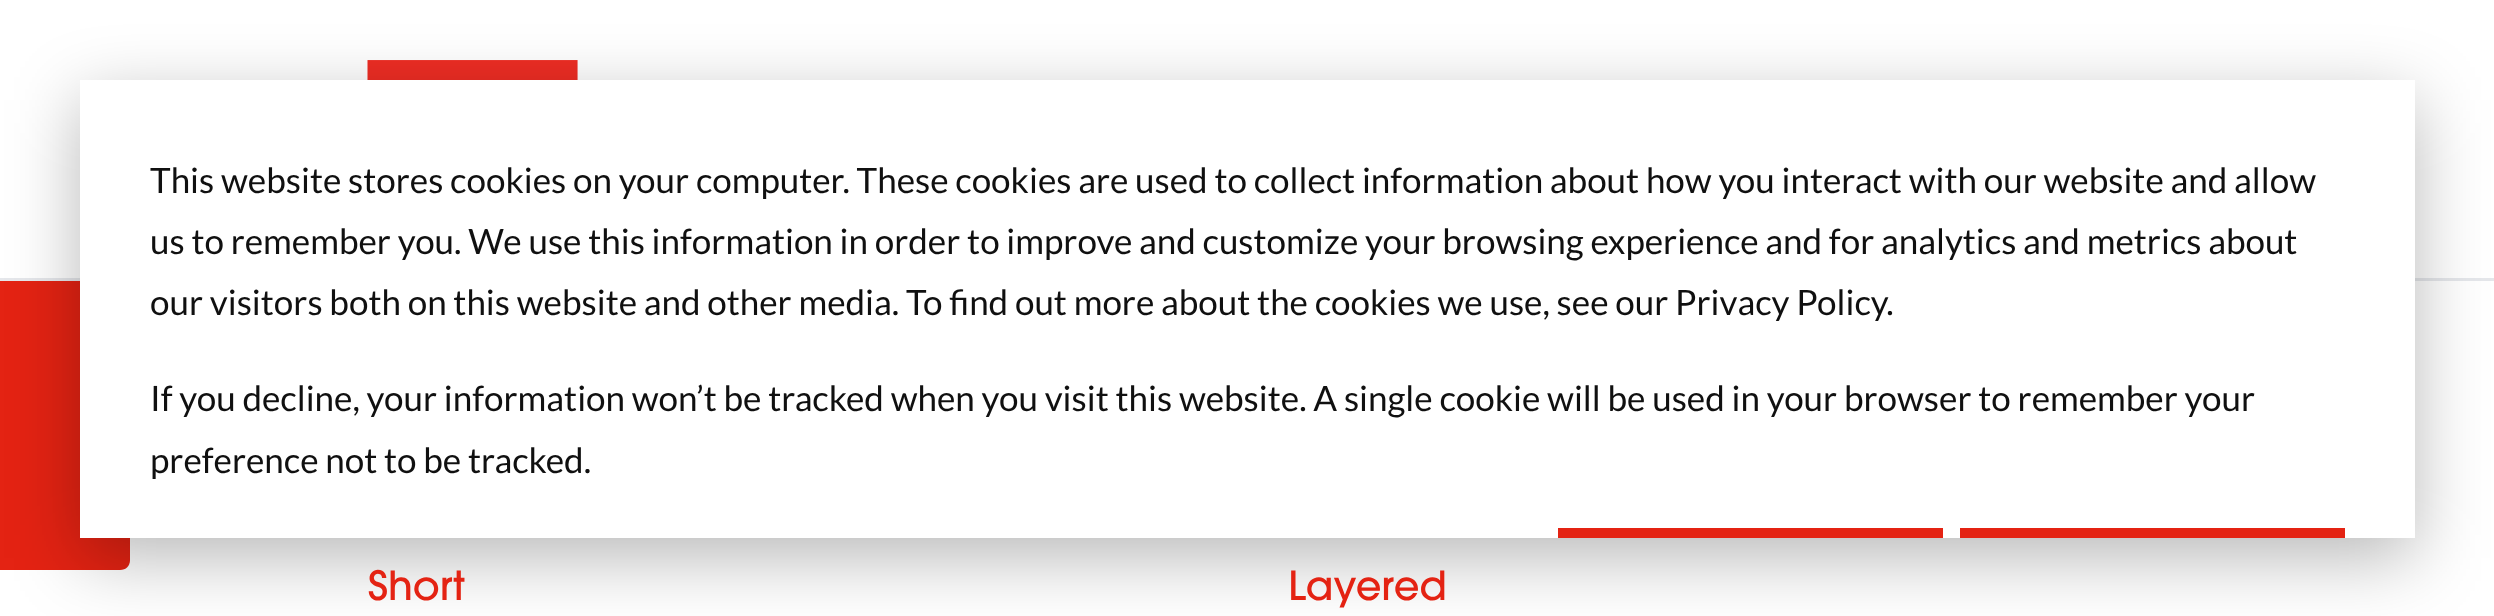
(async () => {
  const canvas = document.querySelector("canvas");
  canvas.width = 2494;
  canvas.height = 616;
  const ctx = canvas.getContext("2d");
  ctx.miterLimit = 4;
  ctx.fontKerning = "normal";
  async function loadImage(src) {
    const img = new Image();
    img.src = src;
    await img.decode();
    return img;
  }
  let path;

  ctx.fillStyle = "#ffffff";
  ctx.fillRect(0, 0, 2494, 616);
  ctx.fillStyle = "#e42313";
  path = new Path2D("M130 140V560C130 566 126 570 120 570H0V130H120C126 130 130 134 130 140Z");
  ctx.fill(path);
  ctx.fillStyle = "#ffffff";
  ctx.fillRect(0, 130, 130, 148);
  ctx.fillStyle = "#e5e7eb";
  ctx.fillRect(0, 278, 2494, 3);
  ctx.drawImage(await loadImage("img/1.png"), 367, 60, 211, 20);
  ctx.fillStyle = "rgba(0, 0, 0, 0.28)";
  ctx.filter = "blur(35px)";
  ctx.beginPath();
  ctx.rect(80, 100, 2335, 458);
  ctx.fill();
  ctx.filter = "none";
  for (const [x, y, w, h, color] of [
    [80, 80, 2335, 458, "#ffffff"],
    [1558, 528, 385, 10, "#e42313"],
    [1960, 528, 385, 10, "#e42313"],
  ]) {
    ctx.fillStyle = color;
    ctx.fillRect(x, y, w, h);
  }
  ctx.font = "35px Lato";
  ctx.fillStyle = "#101010";
  for (const [text, x, y] of [
    ["This website stores cookies on your computer. These cookies are used to collect information about how you interact with our website and allow", 150, 193],
    ["us to remember you. We use this information in order to improve and customize your browsing experience and for analytics and metrics about", 150, 254],
    ["our visitors both on this website and other media. To find out more about the cookies we use, see our Privacy Policy.", 150, 315],
    ["If you decline, your information won’t be tracked when you visit this website. A single cookie will be used in your browser to remember your", 150, 411],
    ["preference not to be tracked.", 150, 473],
  ]) {
    ctx.fillText(text, x, y);
  }
  ctx.font = "500 40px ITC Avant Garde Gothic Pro";
  ctx.fillStyle = "#e42313";
  ctx.fillText("Short", 368, 600);
  ctx.fillText("Layered", 1288, 600);
})();
